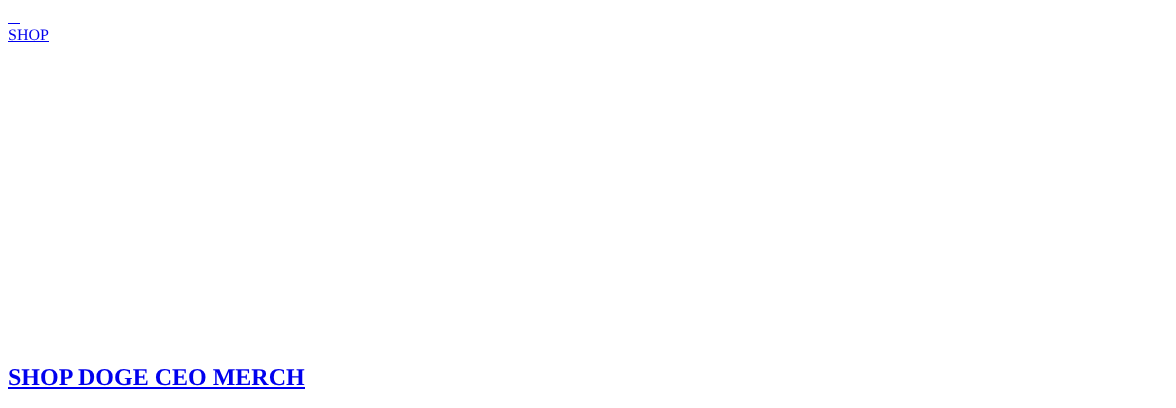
(async () => {
  const canvas = document.querySelector("canvas");
  canvas.width = 1176;
  canvas.height = 408;
  const ctx = canvas.getContext("2d");
  ctx.miterLimit = 4;
  ctx.fontKerning = "normal";

  ctx.fillStyle = "#ffffff";
  ctx.fillRect(0, 0, 1176, 408);
  for (const [x, y, w, h, color] of [
    [8, 23, 12, 1, "#0000ee"],
    [8, 41, 41, 1, "#0000ee"],
    [8, 387, 297, 2, "#0000ee"],
  ]) {
    ctx.fillStyle = color;
    ctx.fillRect(x, y, w, h);
  }
  ctx.font = "16px Liberation Serif";
  ctx.fillText("SHOP", 8, 40);
  ctx.font = "bold 24px Liberation Serif";
  ctx.fillText("SHOP DOGE CEO MERCH", 8, 385);
})();
